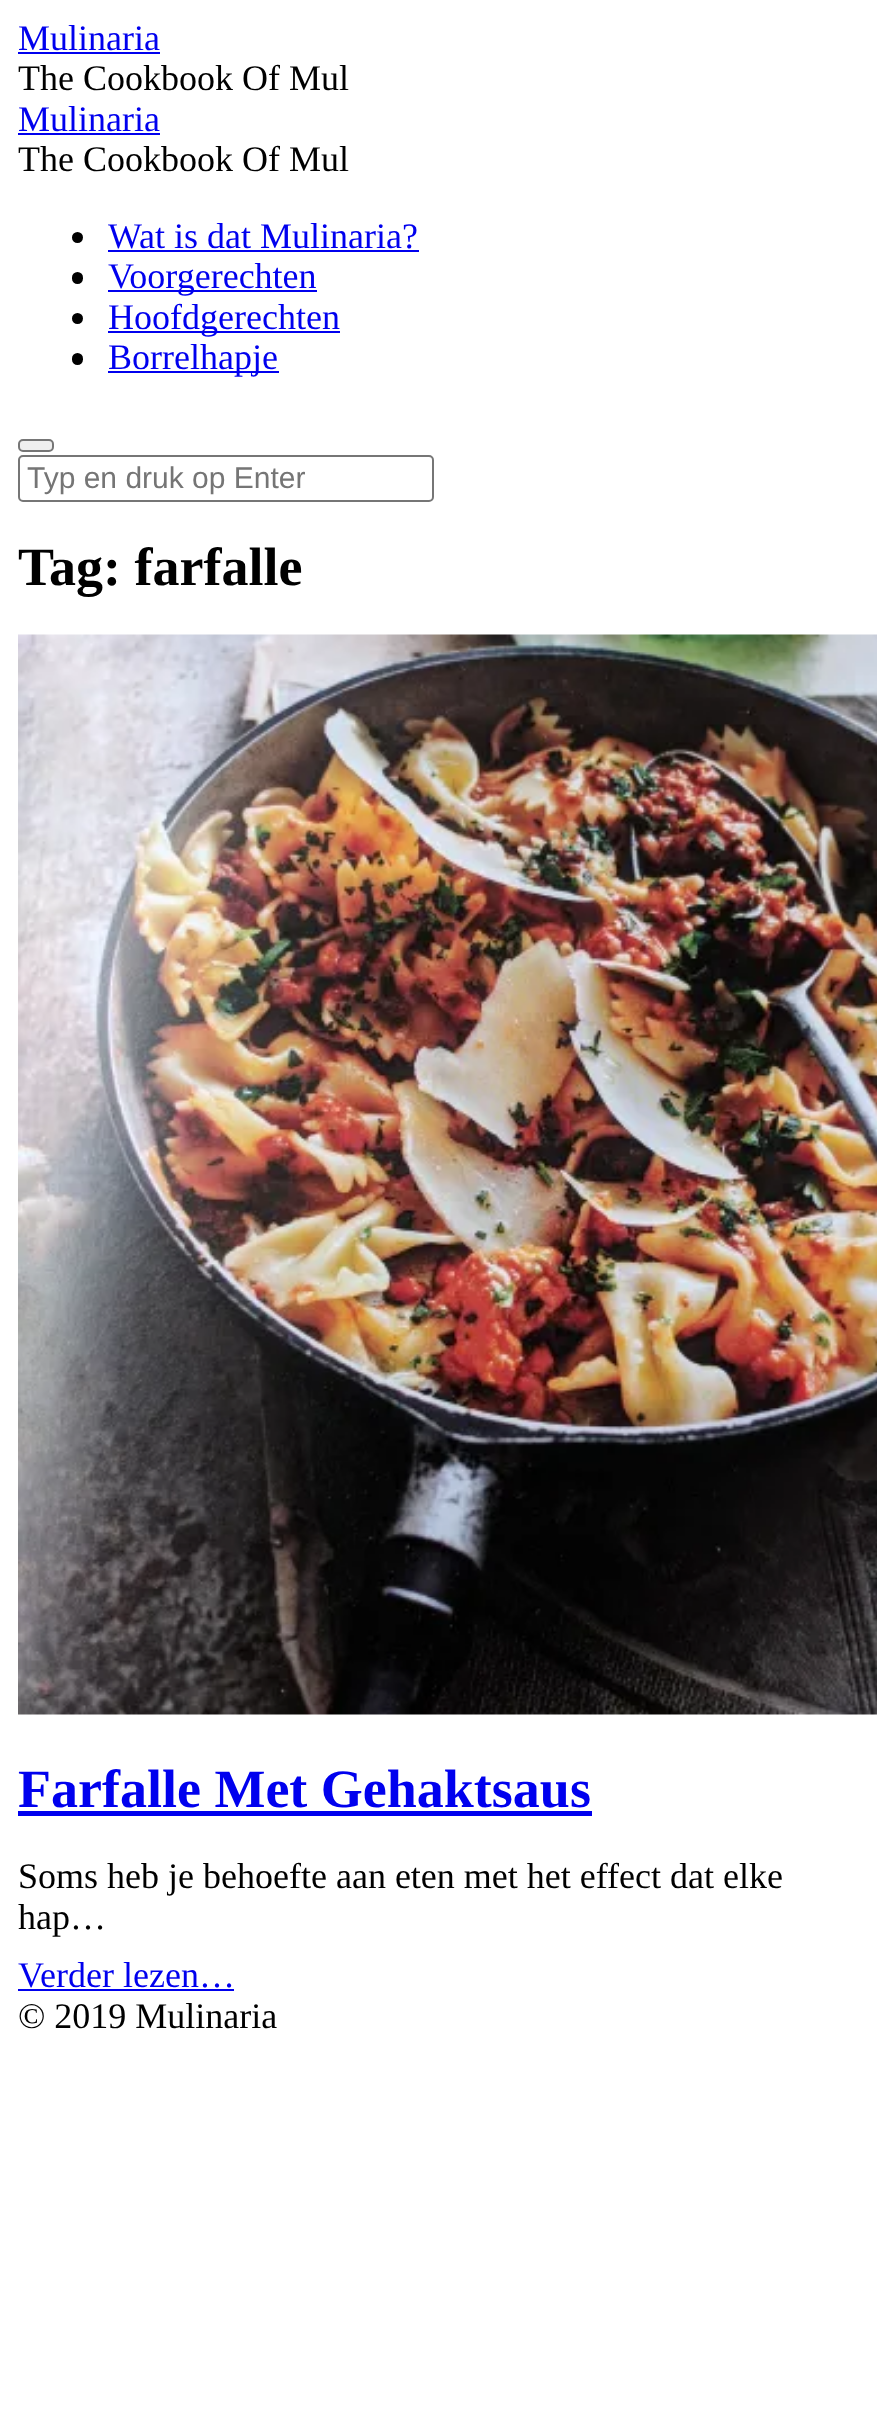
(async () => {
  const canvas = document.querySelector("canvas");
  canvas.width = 877;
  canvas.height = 2412;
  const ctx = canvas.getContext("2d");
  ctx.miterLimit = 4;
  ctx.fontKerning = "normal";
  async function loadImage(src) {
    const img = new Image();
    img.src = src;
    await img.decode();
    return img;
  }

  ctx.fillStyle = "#ffffff";
  ctx.fillRect(0, 0, 877, 2412);
  ctx.fillStyle = "#0000ee";
  ctx.fillRect(18, 52, 142, 2);
  ctx.fillRect(18, 133, 142, 2);
  ctx.fillStyle = "#000000";
  ctx.beginPath();
  ctx.arc(77.5, 237.5, 5.5, 0, Math.PI * 2);
  ctx.fill();
  ctx.fillStyle = "#0000ee";
  ctx.fillRect(108, 250, 311, 2);
  ctx.fillStyle = "#000000";
  ctx.beginPath();
  ctx.roundRect(72, 272, 11, 12, 5.5);
  ctx.fill();
  ctx.fillStyle = "#0000ee";
  ctx.fillRect(108, 290, 209, 2);
  ctx.fillStyle = "#000000";
  ctx.beginPath();
  ctx.arc(77.5, 318.5, 5.5, 0, Math.PI * 2);
  ctx.fill();
  ctx.fillStyle = "#0000ee";
  ctx.fillRect(108, 331, 232, 2);
  ctx.fillStyle = "#000000";
  ctx.beginPath();
  ctx.roundRect(72, 353, 11, 12, 5.5);
  ctx.fill();
  ctx.fillStyle = "#0000ee";
  ctx.fillRect(108, 371, 171, 2);
  ctx.fillStyle = "#efefef";
  ctx.beginPath();
  ctx.roundRect(19, 440, 34, 11, 4);
  ctx.fill();
  ctx.strokeStyle = "#767676";
  ctx.lineWidth = 2;
  ctx.stroke();
  ctx.beginPath();
  ctx.roundRect(19, 456, 414, 45, 4);
  ctx.stroke();
  ctx.drawImage(await loadImage("img/1.png"), 18, 634, 859, 1081);
  ctx.fillStyle = "#0000ee";
  ctx.fillRect(18, 1811, 574, 5);
  ctx.fillRect(18, 1989, 216, 2);
  ctx.font = "36px Liberation Serif";
  ctx.fillText("Mulinaria", 18, 50);
  ctx.fillStyle = "#000000";
  ctx.fillText("The Cookbook Of Mul", 18, 90);
  ctx.fillStyle = "#0000ee";
  ctx.fillText("Mulinaria", 18, 131);
  ctx.fillStyle = "#000000";
  ctx.fillText("The Cookbook Of Mul", 18, 171);
  ctx.fillStyle = "#0000ee";
  for (const [text, x, y] of [
    ["Wat is dat Mulinaria?", 108, 248],
    ["Voorgerechten", 108, 288],
    ["Hoofdgerechten", 108, 329],
    ["Borrelhapje", 108, 369],
  ]) {
    ctx.fillText(text, x, y);
  }
  ctx.font = "30px Liberation Sans";
  ctx.fillStyle = "#757575";
  ctx.fillText("Typ en druk op Enter", 27, 488);
  ctx.font = "bold 54px Liberation Serif";
  ctx.fillStyle = "#000000";
  ctx.fillText("Tag: farfalle", 18, 585);
  ctx.fillStyle = "#0000ee";
  ctx.fillText("Farfalle Met Gehaktsaus", 18, 1807);
  ctx.font = "36px Liberation Serif";
  ctx.fillStyle = "#000000";
  ctx.fillText("Soms heb je behoefte aan eten met het effect dat elke", 18, 1888);
  ctx.fillText("hap…", 18, 1929);
  ctx.fillStyle = "#0000ee";
  ctx.fillText("Verder lezen…", 18, 1987);
  ctx.fillStyle = "#000000";
  ctx.fillText("© 2019 Mulinaria", 18, 2028);
})();
